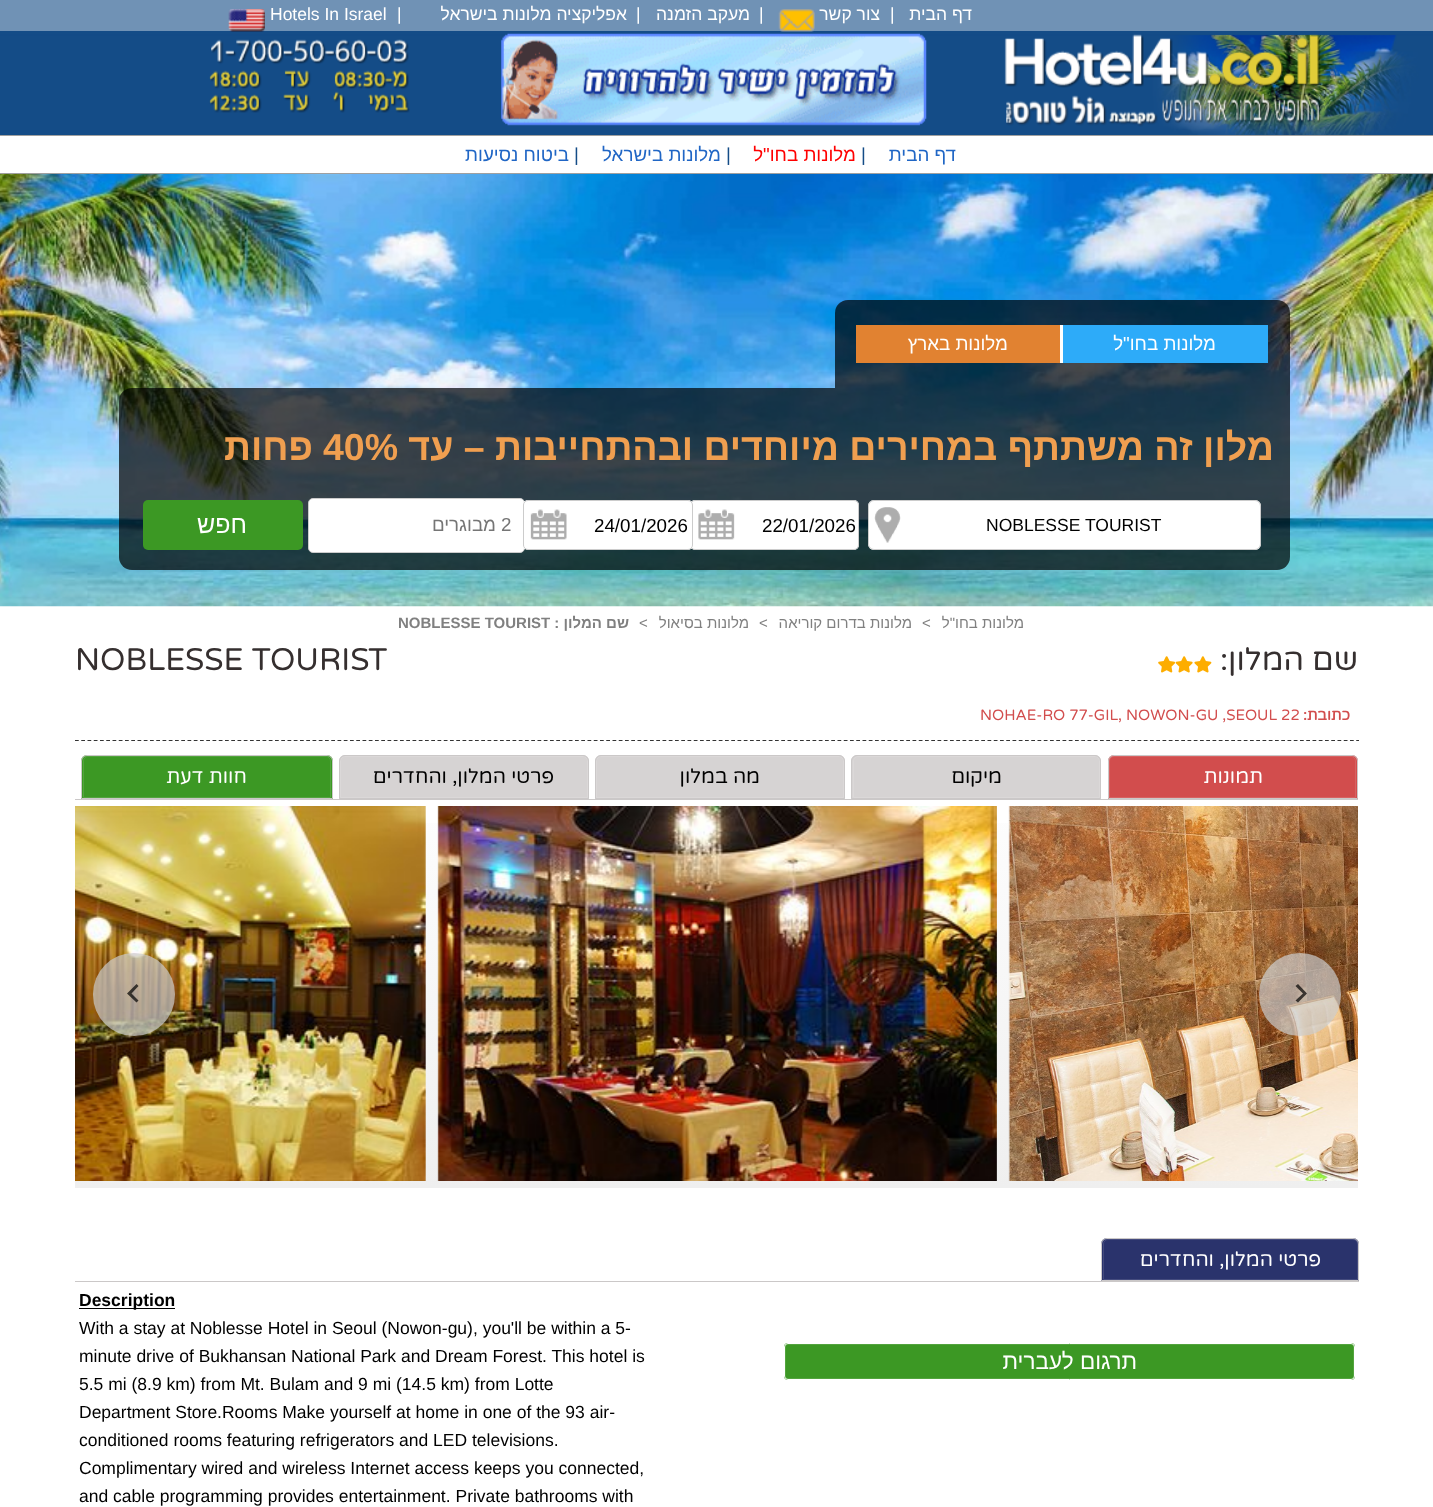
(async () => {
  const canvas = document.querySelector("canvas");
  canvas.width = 1433;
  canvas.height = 1507;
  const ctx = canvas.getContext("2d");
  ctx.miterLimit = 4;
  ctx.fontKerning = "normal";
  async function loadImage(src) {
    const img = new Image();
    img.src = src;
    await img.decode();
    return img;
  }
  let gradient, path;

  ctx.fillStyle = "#ffffff";
  ctx.fillRect(0, 0, 1433, 1507);
  ctx.fillStyle = "#7092b5";
  ctx.fillRect(0, 0, 1433, 31);
  ctx.fillStyle = "#144c87";
  ctx.fillRect(0, 31, 1433, 104);
  ctx.drawImage(await loadImage("img/1.png"), 228, 9, 37, 23);
  ctx.drawImage(await loadImage("img/2.png"), 778, 9, 37, 23);
  ctx.drawImage(await loadImage("img/3.png"), 0, 34, 1433, 101);
  ctx.drawImage(await loadImage("img/4.png"), 209, 39, 201, 74);
  ctx.drawImage(await loadImage("img/5.png"), 501, 33, 426, 93);
  ctx.drawImage(await loadImage("img/6.png"), 1004, 34, 317, 93);
  ctx.fillStyle = "#a0a0a0";
  ctx.fillRect(0, 135, 1433, 1);
  ctx.fillRect(0, 173, 1433, 1);
  ctx.drawImage(await loadImage("img/7.png"), 0, 174, 1433, 433);
  ctx.fillStyle = "rgba(0, 0, 0, 0.7)";
  ctx.beginPath();
  ctx.roundRect(835, 300, 455, 88, [13, 13, 0, 0]);
  ctx.fill();
  for (const [x, y, w, h, color] of [
    [856, 325, 204, 38, "#e18231"],
    [1060, 325, 3, 38, "#ffffff"],
    [1063, 325, 205, 38, "#2dabf9"],
  ]) {
    ctx.fillStyle = color;
    ctx.fillRect(x, y, w, h);
  }
  ctx.fillStyle = "rgba(0, 0, 0, 0.7)";
  ctx.beginPath();
  ctx.roundRect(119, 388, 1171, 182, [13, 0, 13, 13]);
  ctx.fill();
  ctx.fillStyle = "#3c9824";
  ctx.beginPath();
  ctx.roundRect(143, 500, 160, 50, 5);
  ctx.fill();
  ctx.fillStyle = "#ffffff";
  ctx.beginPath();
  ctx.roundRect(308.5, 498.5, 216, 54, 4.5);
  ctx.fill();
  ctx.strokeStyle = "#cccccc";
  ctx.stroke();
  ctx.beginPath();
  ctx.roundRect(690, 500, 169, 50, 5);
  ctx.fill();
  ctx.drawImage(await loadImage("img/9.png"), 691, 501, 44, 48);
  ctx.beginPath();
  ctx.roundRect(690.5, 500.5, 168, 49, 4.5);
  ctx.stroke();
  ctx.beginPath();
  ctx.roundRect(523, 500, 170, 50, 5);
  ctx.fill();
  ctx.drawImage(await loadImage("img/8.png"), 524, 501, 43, 48);
  ctx.beginPath();
  ctx.roundRect(523.5, 500.5, 169, 49, 4.5);
  ctx.stroke();
  ctx.beginPath();
  ctx.roundRect(868, 500, 393, 50, 6);
  ctx.fill();
  ctx.drawImage(await loadImage("img/10.png"), 874, 507, 27, 36);
  ctx.beginPath();
  ctx.roundRect(868.5, 500.5, 392, 49, 5.5);
  ctx.stroke();
  path = new Path2D("M75 740.5H1359");
  ctx.strokeStyle = "#333333";
  ctx.lineWidth = 1.2;
  ctx.setLineDash([3.75, 2.5]);
  ctx.stroke(path);
  ctx.fillRect(75, 739, 1284, 1);
  ctx.drawImage(await loadImage("img/12.png"), 1175, 656, 18, 17);
  ctx.drawImage(await loadImage("img/11.png"), 1158, 656, 18, 17);
  ctx.drawImage(await loadImage("img/13.png"), 1194, 656, 18, 17);
  gradient = ctx.createLinearGradient(716, 755, 716, 1188);
  gradient.addColorStop(0, "#ffffff");
  gradient.addColorStop(1, "#efefef");
  ctx.fillStyle = gradient;
  ctx.fillRect(75, 823, 1283, 365);
  ctx.fillStyle = "#cbc8c8";
  ctx.fillRect(75, 799, 1283, 1);
  ctx.fillStyle = "#3c9824";
  ctx.beginPath();
  ctx.roundRect(81, 755, 252, 44, [6, 6, 0, 0]);
  ctx.fill();
  ctx.beginPath();
  ctx.roundRect(83.5, 756.5, 247, 41, [4.5, 4.5, 0, 0]);
  ctx.strokeStyle = "#53a43e";
  ctx.lineWidth = 1;
  ctx.setLineDash([]);
  ctx.stroke();
  ctx.beginPath();
  ctx.roundRect(81.5, 755.5, 251, 43, [5.5, 5.5, 0, 0]);
  ctx.strokeStyle = "#cbc8c8";
  ctx.stroke();
  ctx.fillStyle = "#d6d3d3";
  ctx.beginPath();
  ctx.roundRect(339, 755, 250, 44, [6, 6, 0, 0]);
  ctx.fill();
  ctx.beginPath();
  ctx.roundRect(340.5, 756.5, 247, 41, [4.5, 4.5, 0, 0]);
  ctx.strokeStyle = "#dbd8d8";
  ctx.stroke();
  ctx.beginPath();
  ctx.roundRect(339.5, 755.5, 249, 43, [5.5, 5.5, 0, 0]);
  ctx.strokeStyle = "#cbc8c8";
  ctx.stroke();
  ctx.beginPath();
  ctx.roundRect(595, 755, 250, 44, [6, 6, 0, 0]);
  ctx.fill();
  ctx.beginPath();
  ctx.roundRect(596.5, 756.5, 247, 41, [4.5, 4.5, 0, 0]);
  ctx.strokeStyle = "#dbd8d8";
  ctx.stroke();
  ctx.beginPath();
  ctx.roundRect(595.5, 755.5, 249, 43, [5.5, 5.5, 0, 0]);
  ctx.strokeStyle = "#cbc8c8";
  ctx.stroke();
  ctx.beginPath();
  ctx.roundRect(851, 755, 250, 44, [6, 6, 0, 0]);
  ctx.fill();
  ctx.beginPath();
  ctx.roundRect(853.5, 756.5, 246, 41, [4.5, 4.5, 0, 0]);
  ctx.strokeStyle = "#dbd8d8";
  ctx.stroke();
  ctx.beginPath();
  ctx.roundRect(851.5, 755.5, 249, 43, [5.5, 5.5, 0, 0]);
  ctx.strokeStyle = "#cbc8c8";
  ctx.stroke();
  ctx.fillStyle = "#d24d4d";
  ctx.beginPath();
  ctx.roundRect(1108, 755, 250, 44, [6, 6, 0, 0]);
  ctx.fill();
  ctx.beginPath();
  ctx.roundRect(1109.5, 756.5, 246, 41, [4.5, 4.5, 0, 0]);
  ctx.strokeStyle = "#d76262";
  ctx.stroke();
  ctx.beginPath();
  ctx.roundRect(1108.5, 755.5, 249, 43, [5.5, 5.5, 0, 0]);
  ctx.strokeStyle = "#cbc8c8";
  ctx.stroke();
  ctx.drawImage(await loadImage("img/14.png"), 75, 806, 351, 375);
  ctx.drawImage(await loadImage("img/15.png"), 437, 806, 560, 375);
  ctx.drawImage(await loadImage("img/16.png"), 1008, 806, 350, 375);
  ctx.fillStyle = "rgba(204, 204, 204, 0.7)";
  ctx.beginPath();
  ctx.roundRect(93, 953, 82, 83, 41);
  ctx.fill();
  ctx.fillStyle = "rgba(0, 0, 0, 0.7)";
  path = new Path2D("M136.5 984L138.5 986L131.5 993.5L138.5 1000.5L136.5 1002.5L127 993.5Z");
  ctx.fill(path);
  ctx.fillStyle = "rgba(204, 204, 204, 0.7)";
  ctx.beginPath();
  ctx.roundRect(1259, 953, 82, 83, 41);
  ctx.fill();
  ctx.fillStyle = "rgba(0, 0, 0, 0.7)";
  path = new Path2D("M1298 984L1295.5 986L1303 993.5L1295.5 1000.5L1298 1002.5L1307 993.5Z");
  ctx.fill(path);
  ctx.fillStyle = "#cbc8c8";
  ctx.fillRect(75, 1281, 1284, 1);
  ctx.fillStyle = "#2a336c";
  ctx.beginPath();
  ctx.roundRect(1101, 1238, 258, 43, [6, 6, 0, 0]);
  ctx.fill();
  ctx.beginPath();
  ctx.roundRect(1103.5, 1239.5, 254, 40, [4.5, 4.5, 0, 0]);
  ctx.strokeStyle = "#444b7e";
  ctx.stroke();
  ctx.beginPath();
  ctx.roundRect(1101.5, 1238.5, 257, 42, [5.5, 5.5, 0, 0]);
  ctx.strokeStyle = "#cbc8c8";
  ctx.stroke();
  ctx.fillStyle = "#000000";
  ctx.fillRect(79, 1308, 96, 1);
  ctx.fillStyle = "#3c9824";
  ctx.beginPath();
  ctx.roundRect(784, 1343, 571, 37, 4);
  ctx.fill();
  ctx.beginPath();
  ctx.roundRect(785.5, 1344.5, 568, 34, 2);
  ctx.strokeStyle = "#53a43e";
  ctx.stroke();
  ctx.beginPath();
  ctx.roundRect(784.5, 1343.5, 570, 36, 3.5);
  ctx.strokeStyle = "#ffffff";
  ctx.stroke();
  ctx.font = "17.5px Liberation Sans";
  ctx.fillStyle = "#ffffff";
  ctx.fillText("Hotels In Israel", 270, 20);
  ctx.fillText("|", 397, 20);
  ctx.direction = "rtl";
  ctx.fillText("אפליקציה מלונות בישראל", 627, 20);
  ctx.direction = "ltr";
  ctx.fillText("|", 636, 20);
  ctx.direction = "rtl";
  ctx.fillText("מעקב הזמנה", 750, 20);
  ctx.direction = "ltr";
  ctx.fillText("|", 759, 20);
  ctx.direction = "rtl";
  ctx.fillText("צור קשר", 880, 20);
  ctx.direction = "ltr";
  ctx.fillText("|", 890, 20);
  ctx.direction = "rtl";
  ctx.fillText("דף הבית", 972, 20);
  ctx.font = "18.75px Liberation Sans";
  ctx.fillStyle = "#2066c5";
  ctx.fillText("ביטוח נסיעות", 569, 161);
  ctx.direction = "ltr";
  ctx.fillStyle = "#144c87";
  ctx.fillText("|", 574, 161);
  ctx.direction = "rtl";
  ctx.fillStyle = "#2066c5";
  ctx.fillText("מלונות בישראל", 721, 161);
  ctx.direction = "ltr";
  ctx.fillStyle = "#144c87";
  ctx.fillText("|", 726, 161);
  ctx.direction = "rtl";
  ctx.fillStyle = "#ff0000";
  ctx.fillText("מלונות בחו\"ל", 856, 161);
  ctx.direction = "ltr";
  ctx.fillStyle = "#144c87";
  ctx.fillText("|", 861, 161);
  ctx.direction = "rtl";
  ctx.fillStyle = "#2066c5";
  ctx.fillText("דף הבית", 956, 161);
  ctx.fillStyle = "#ffffff";
  ctx.fillText("מלונות בארץ", 1008, 350);
  ctx.fillText("מלונות בחו\"ל", 1216, 350);
  ctx.font = "bold 37.5px Liberation Sans";
  ctx.fillStyle = "#f09f50";
  ctx.fillText("פחות", 313, 460);
  ctx.direction = "ltr";
  ctx.fillText("40%", 323, 460);
  ctx.direction = "rtl";
  ctx.fillText("מלון זה משתתף במחירים מיוחדים ובהתחייבות – עד", 1274, 460);
  ctx.font = "25px Liberation Sans";
  ctx.fillStyle = "#ffffff";
  ctx.fillText("חפש", 247, 533);
  ctx.font = "18.75px Liberation Sans";
  ctx.fillStyle = "#757575";
  ctx.fillText("מבוגרים", 496, 531);
  ctx.direction = "ltr";
  ctx.fillText("2", 501, 531);
  ctx.fillStyle = "#000000";
  ctx.fillText("24/01/2026", 594, 532);
  ctx.fillText("22/01/2026", 762, 532);
  ctx.font = "17.5px Liberation Sans";
  ctx.fillText("NOBLESSE TOURIST", 986, 531);
  ctx.font = "bold 15px Liberation Sans";
  ctx.fillStyle = "#808080";
  ctx.fillText("NOBLESSE TOURIST", 398, 628);
  ctx.direction = "rtl";
  ctx.fillText("שם המלון :", 629, 628);
  ctx.direction = "ltr";
  ctx.font = "15px Liberation Sans";
  ctx.fillText("<", 639, 628);
  ctx.direction = "rtl";
  ctx.fillText("מלונות בסיאול", 749, 628);
  ctx.direction = "ltr";
  ctx.fillText("<", 759, 628);
  ctx.direction = "rtl";
  ctx.fillText("מלונות בדרום קוריאה", 912, 628);
  ctx.direction = "ltr";
  ctx.fillText("<", 922, 628);
  ctx.direction = "rtl";
  ctx.fillText("מלונות בחו\"ל", 1024, 628);
  ctx.direction = "ltr";
  ctx.font = "31.25px Varela Round";
  ctx.fillStyle = "#352f2f";
  ctx.fillText("NOBLESSE TOURIST", 75, 670);
  ctx.direction = "rtl";
  ctx.fillText("שם המלון:", 1358, 670);
  ctx.direction = "ltr";
  ctx.font = "15px Varela Round";
  ctx.fillStyle = "#d24d4d";
  ctx.fillText("NOHAE-RO 77-GIL, NOWON-GU ,SEOUL 22", 980, 720);
  ctx.direction = "rtl";
  ctx.font = "bold 15px Varela Round";
  ctx.fillText("כתובת:", 1350, 720);
  ctx.font = "20px Varela Round";
  ctx.fillStyle = "#ffffff";
  ctx.fillText("חוות דעת", 247, 783);
  ctx.fillStyle = "#000000";
  for (const [text, x, y] of [
    ["פרטי המלון, והחדרים", 554, 783],
    ["מה במלון", 760, 783],
    ["מיקום", 1002, 783],
  ]) {
    ctx.fillText(text, x, y);
  }
  ctx.fillStyle = "#ffffff";
  ctx.fillText("תמונות", 1263, 783);
  ctx.fillText("פרטי המלון, והחדרים", 1321, 1266);
  ctx.direction = "ltr";
  ctx.font = "bold 17.5px Liberation Sans";
  ctx.fillStyle = "#000000";
  ctx.fillText("Description", 79, 1306);
  ctx.font = "17.5px Liberation Sans";
  for (const [text, x, y] of [
    ["With a stay at Noblesse Hotel in Seoul (Nowon-gu), you'll be within a 5-", 79, 1334],
    ["minute drive of Bukhansan National Park and Dream Forest. This hotel is", 79, 1362],
    ["5.5 mi (8.9 km) from Mt. Bulam and 9 mi (14.5 km) from Lotte", 79, 1390],
    ["Department Store.Rooms Make yourself at home in one of the 93 air-", 79, 1418],
    ["conditioned rooms featuring refrigerators and LED televisions.", 79, 1446],
    ["Complimentary wired and wireless Internet access keeps you connected,", 79, 1474],
    ["and cable programming provides entertainment. Private bathrooms with", 79, 1502],
  ]) {
    ctx.fillText(text, x, y);
  }
  ctx.direction = "rtl";
  ctx.font = "22.5px Liberation Sans";
  ctx.fillStyle = "#ffffff";
  ctx.fillText("תרגום לעברית", 1137, 1369);
})();
